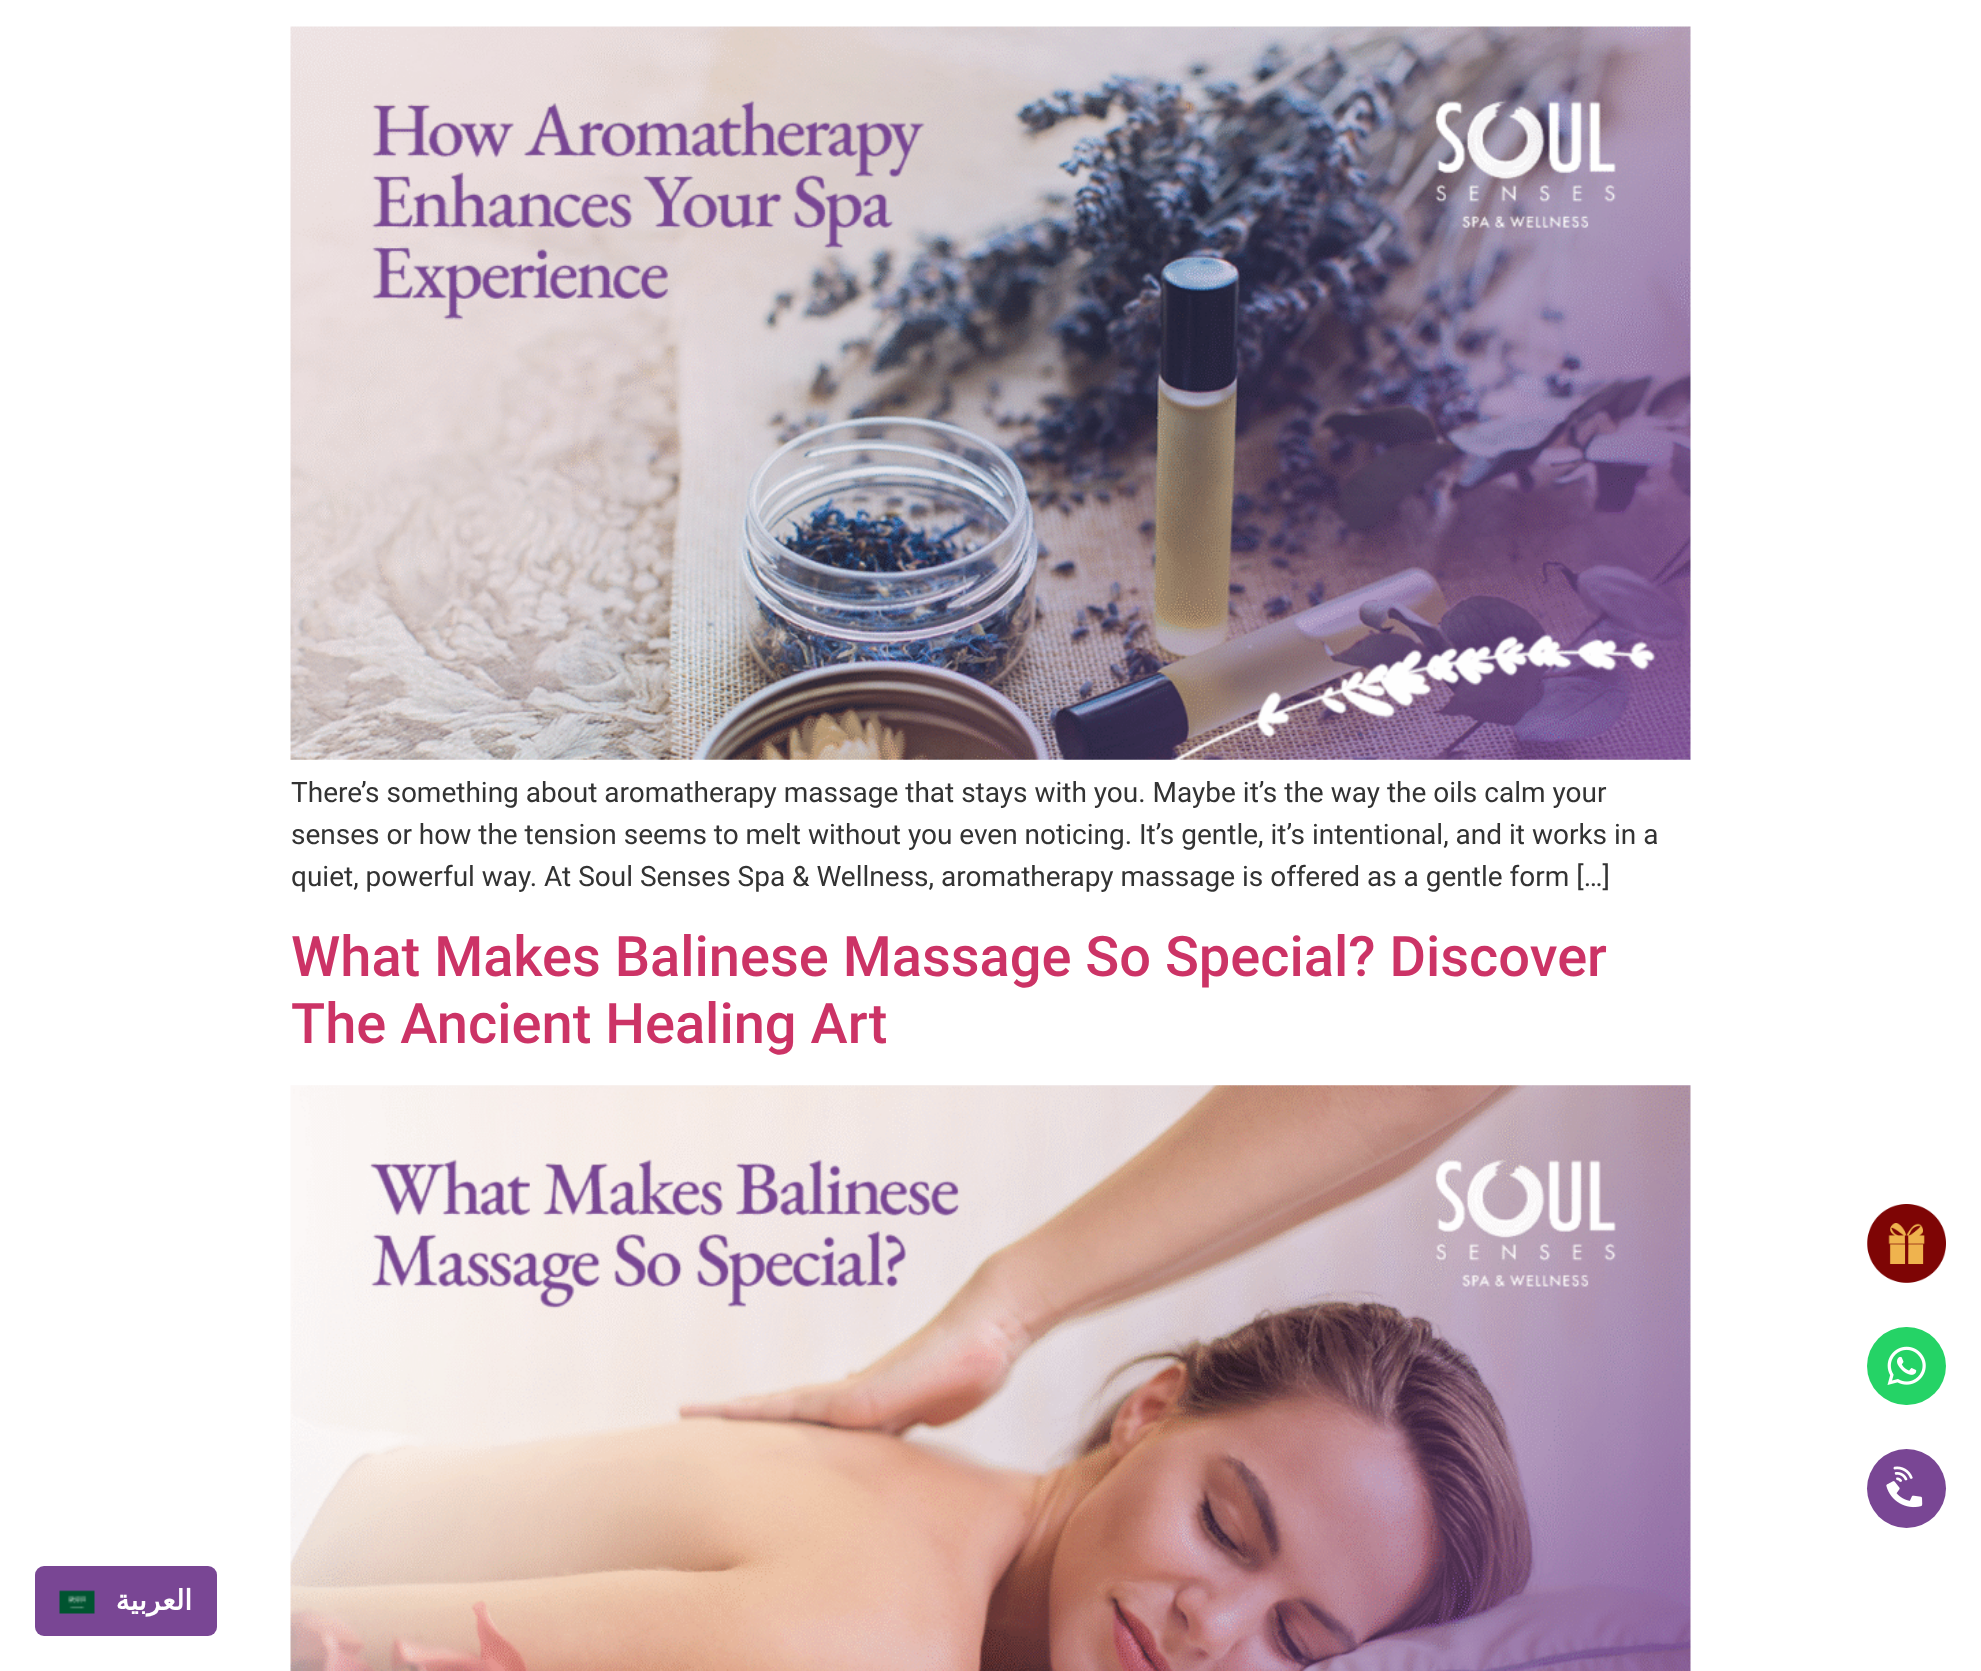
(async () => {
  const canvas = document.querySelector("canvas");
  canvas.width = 1981;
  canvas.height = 1671;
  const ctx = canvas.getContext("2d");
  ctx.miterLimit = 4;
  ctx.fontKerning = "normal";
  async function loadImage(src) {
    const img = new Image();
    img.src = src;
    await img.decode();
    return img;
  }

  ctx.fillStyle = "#ffffff";
  ctx.fillRect(0, 0, 1981, 1671);
  ctx.drawImage(await loadImage("img/1.png"), 290, 26, 1401, 734);
  ctx.drawImage(await loadImage("img/2.png"), 290, 1085, 1401, 586);
  ctx.drawImage(await loadImage("img/3.png"), 1867, 1204, 79, 79);
  ctx.fillStyle = "#25d366";
  ctx.beginPath();
  ctx.roundRect(1867, 1327, 79, 78, 39);
  ctx.fill();
  ctx.drawImage(await loadImage("img/4.png"), 1887, 1346, 39, 39);
  ctx.fillStyle = "#794694";
  ctx.beginPath();
  ctx.arc(1906.5, 1488.5, 39.5, 0, Math.PI * 2);
  ctx.fill();
  ctx.drawImage(await loadImage("img/5.png"), 1886, 1466, 37, 42);
  ctx.beginPath();
  ctx.roundRect(35, 1566, 182, 70, 9);
  ctx.fill();
  ctx.drawImage(await loadImage("img/6.png"), 59, 1590, 36, 24);
  ctx.font = "28px Roboto";
  ctx.fillStyle = "#333333";
  for (const [text, x, y] of [
    ["There’s something about aromatherapy massage that stays with you. Maybe it’s the way the oils calm your", 291, 802],
    ["senses or how the tension seems to melt without you even noticing. It’s gentle, it’s intentional, and it works in a", 291, 844],
    ["quiet, powerful way. At Soul Senses Spa & Wellness, aromatherapy massage is offered as a gentle form […]", 291, 886],
  ]) {
    ctx.fillText(text, x, y);
  }
  ctx.font = "500 56px Roboto";
  ctx.fillStyle = "#cc3366";
  ctx.fillText("What Makes Balinese Massage So Special? Discover", 291, 976);
  ctx.fillText("The Ancient Healing Art", 291, 1043);
  ctx.direction = "rtl";
  ctx.font = "bold 28px DejaVu Sans";
  ctx.fillStyle = "#ffffff";
  ctx.fillText("العربية", 192, 1610);
})();
